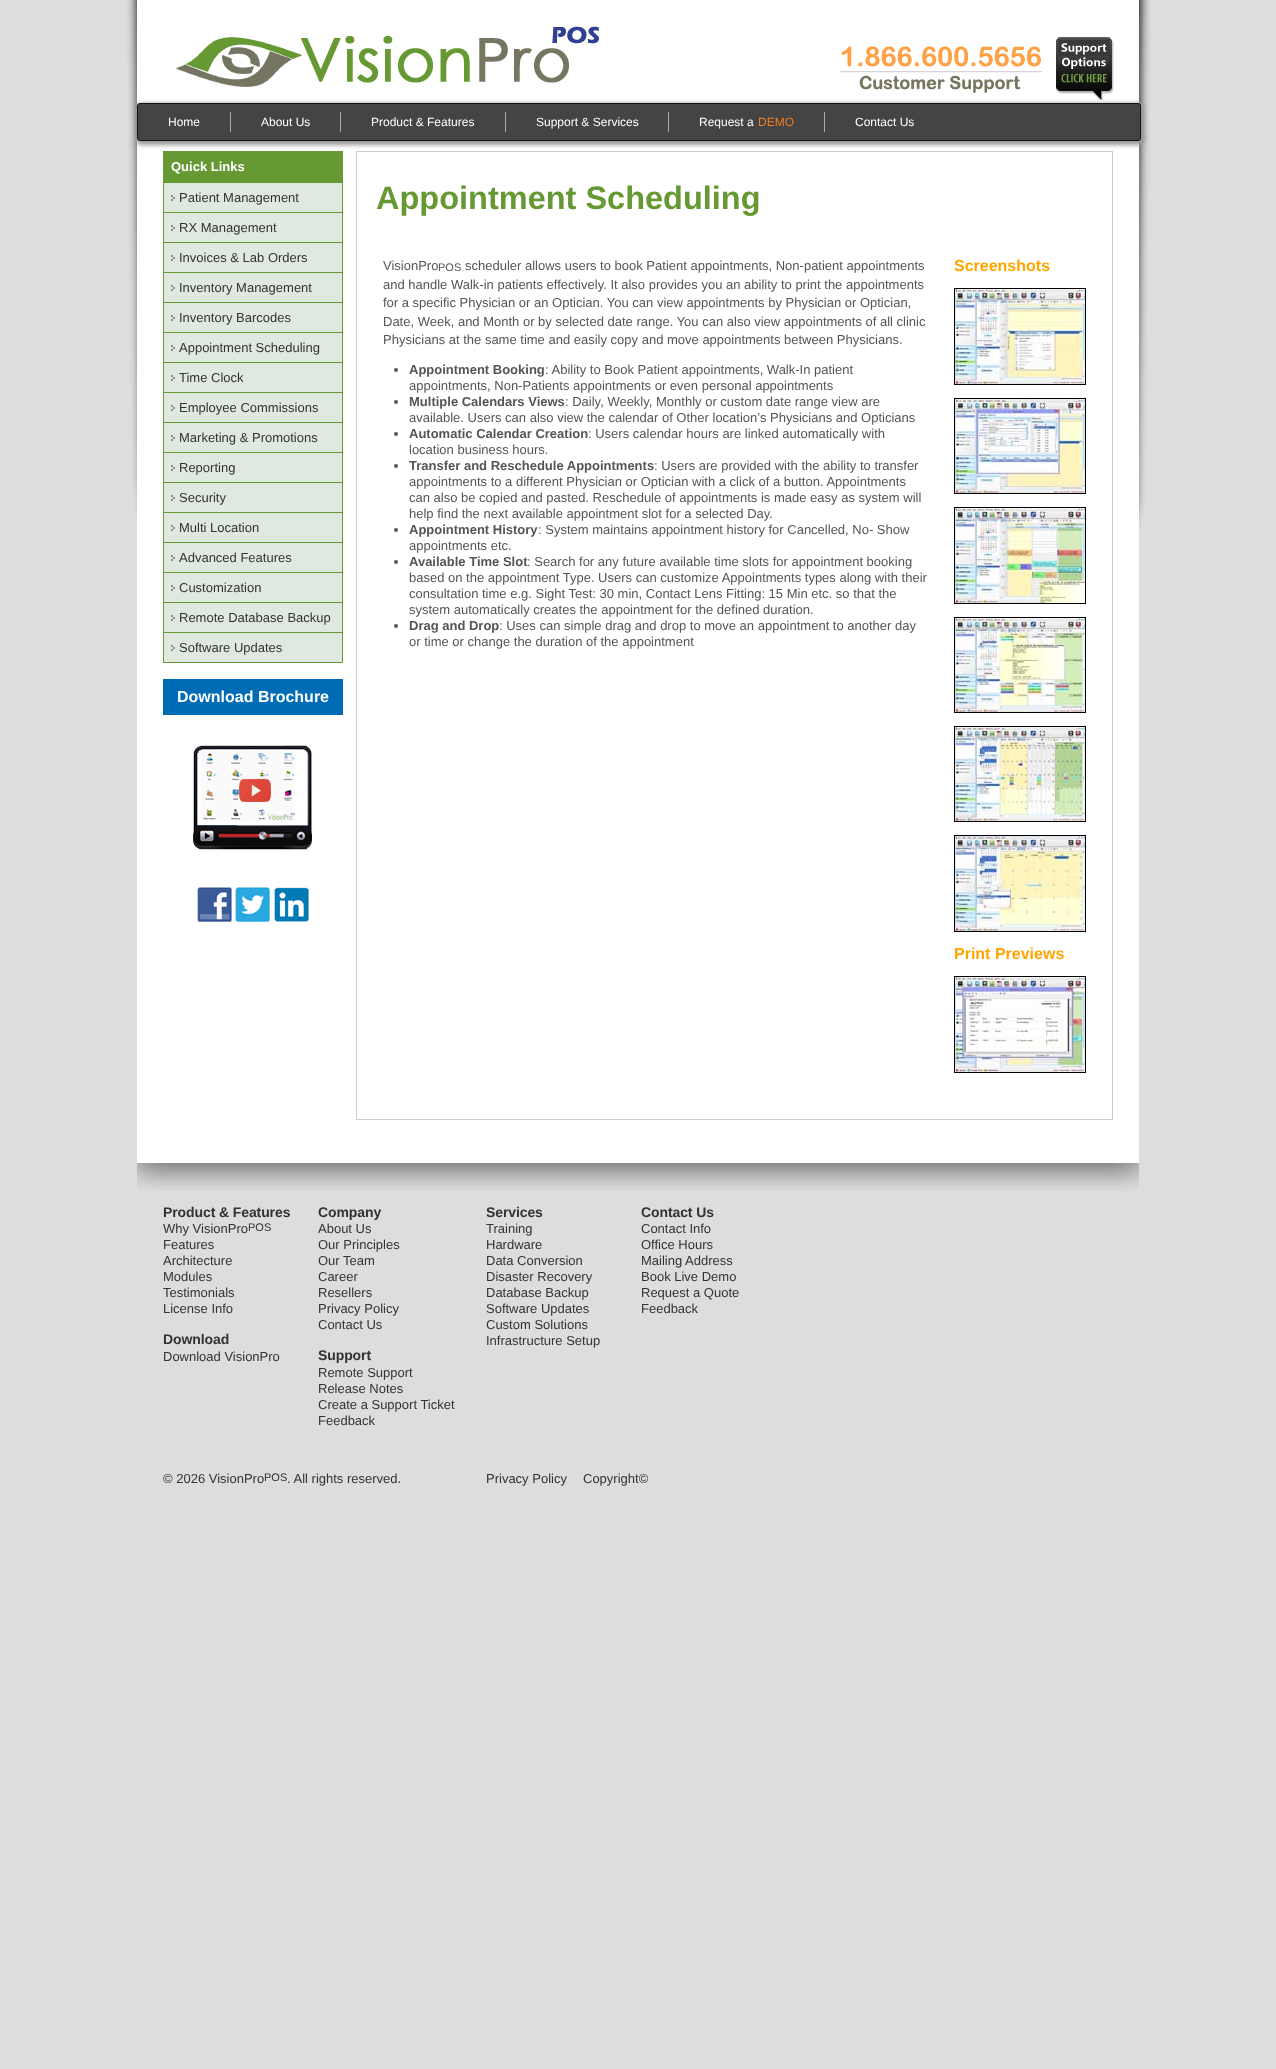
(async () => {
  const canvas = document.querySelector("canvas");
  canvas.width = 1276;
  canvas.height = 2069;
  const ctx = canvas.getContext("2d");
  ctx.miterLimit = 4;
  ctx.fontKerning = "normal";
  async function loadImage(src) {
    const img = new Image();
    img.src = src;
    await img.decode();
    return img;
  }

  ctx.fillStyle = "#dddddd";
  ctx.fillRect(0, 0, 1276, 2069);
  ctx.drawImage(await loadImage("img/1.png"), 127, 0, 1024, 528);
  ctx.fillStyle = "#ffffff";
  ctx.fillRect(137, 0, 1002, 1146);
  ctx.drawImage(await loadImage("img/2.png"), 176, 25, 427, 62);
  ctx.drawImage(await loadImage("img/3.png"), 840, 37, 274, 63);
  ctx.fillStyle = "#669933";
  ctx.fillRect(163, 151, 180, 512);
  ctx.strokeStyle = "#cccccc";
  ctx.strokeRect(356.5, 151.5, 756, 968);
  ctx.fillStyle = "#999999";
  ctx.filter = "blur(2px)";
  ctx.beginPath();
  ctx.roundRect(136, 103, 1008, 42, 5);
  ctx.fill();
  ctx.filter = "none";
  ctx.fillStyle = "#444444";
  ctx.beginPath();
  ctx.roundRect(137.5, 103.5, 1003, 37, 2.5);
  ctx.fill();
  ctx.strokeStyle = "#111111";
  ctx.stroke();
  for (const [x, y, w, h, color] of [
    [230, 112, 1, 20, "#aaaaaa"],
    [340, 112, 1, 20, "#aaaaaa"],
    [505, 112, 1, 20, "#aaaaaa"],
    [668, 112, 1, 20, "#aaaaaa"],
    [824, 112, 1, 20, "#aaaaaa"],
    [164, 183, 178, 29, "#e0e9df"],
  ]) {
    ctx.fillStyle = color;
    ctx.fillRect(x, y, w, h);
  }
  ctx.drawImage(await loadImage("img/4.png"), 171, 195, 4, 6);
  ctx.fillRect(164, 213, 178, 29);
  ctx.drawImage(await loadImage("img/4.png"), 171, 225, 4, 6);
  ctx.fillRect(164, 243, 178, 29);
  ctx.drawImage(await loadImage("img/4.png"), 171, 255, 4, 6);
  ctx.fillRect(164, 273, 178, 29);
  ctx.drawImage(await loadImage("img/4.png"), 171, 285, 4, 6);
  ctx.fillRect(164, 303, 178, 29);
  ctx.drawImage(await loadImage("img/4.png"), 171, 315, 4, 6);
  ctx.fillRect(164, 333, 178, 29);
  ctx.drawImage(await loadImage("img/4.png"), 171, 345, 4, 6);
  ctx.fillRect(164, 363, 178, 29);
  ctx.drawImage(await loadImage("img/4.png"), 171, 375, 4, 6);
  ctx.fillRect(164, 393, 178, 29);
  ctx.drawImage(await loadImage("img/4.png"), 171, 405, 4, 6);
  ctx.fillRect(164, 423, 178, 29);
  ctx.drawImage(await loadImage("img/4.png"), 171, 435, 4, 6);
  ctx.fillRect(164, 453, 178, 29);
  ctx.drawImage(await loadImage("img/4.png"), 171, 465, 4, 6);
  ctx.fillRect(164, 483, 178, 29);
  ctx.drawImage(await loadImage("img/4.png"), 171, 495, 4, 6);
  ctx.fillRect(164, 513, 178, 29);
  ctx.drawImage(await loadImage("img/4.png"), 171, 525, 4, 6);
  ctx.fillRect(164, 543, 178, 29);
  ctx.drawImage(await loadImage("img/4.png"), 171, 555, 4, 6);
  ctx.fillRect(164, 573, 178, 29);
  ctx.drawImage(await loadImage("img/4.png"), 171, 585, 4, 6);
  ctx.fillRect(164, 603, 178, 29);
  ctx.drawImage(await loadImage("img/4.png"), 171, 615, 4, 6);
  ctx.fillRect(164, 633, 178, 29);
  ctx.drawImage(await loadImage("img/4.png"), 171, 645, 4, 6);
  ctx.fillStyle = "#006cb6";
  ctx.fillRect(163, 679, 180, 36);
  ctx.drawImage(await loadImage("img/5.png"), 192, 745, 121, 105);
  ctx.drawImage(await loadImage("img/6.png"), 197, 887, 35, 35);
  ctx.drawImage(await loadImage("img/7.png"), 235, 887, 35, 35);
  ctx.drawImage(await loadImage("img/8.png"), 274, 887, 35, 35);
  ctx.fillStyle = "#555555";
  ctx.beginPath();
  ctx.arc(396, 370, 2, 0, Math.PI * 2);
  ctx.fill();
  ctx.beginPath();
  ctx.arc(396, 402, 2, 0, Math.PI * 2);
  ctx.fill();
  ctx.beginPath();
  ctx.arc(396, 434, 2, 0, Math.PI * 2);
  ctx.fill();
  ctx.beginPath();
  ctx.arc(396, 466, 2, 0, Math.PI * 2);
  ctx.fill();
  ctx.beginPath();
  ctx.arc(396, 530, 2, 0, Math.PI * 2);
  ctx.fill();
  ctx.beginPath();
  ctx.arc(396, 562, 2, 0, Math.PI * 2);
  ctx.fill();
  ctx.beginPath();
  ctx.arc(396, 626, 2, 0, Math.PI * 2);
  ctx.fill();
  ctx.strokeStyle = "#000000";
  ctx.strokeRect(954.5, 288.5, 131, 96);
  ctx.drawImage(await loadImage("img/9.png"), 955, 289, 130, 95);
  ctx.strokeRect(954.5, 398.5, 131, 95);
  ctx.drawImage(await loadImage("img/10.png"), 955, 399, 130, 94);
  ctx.strokeRect(954.5, 507.5, 131, 96);
  ctx.drawImage(await loadImage("img/11.png"), 955, 508, 130, 95);
  ctx.strokeRect(954.5, 617.5, 131, 95);
  ctx.drawImage(await loadImage("img/12.png"), 955, 618, 130, 94);
  ctx.strokeRect(954.5, 726.5, 131, 95);
  ctx.drawImage(await loadImage("img/13.png"), 955, 727, 130, 94);
  ctx.strokeRect(954.5, 835.5, 131, 96);
  ctx.drawImage(await loadImage("img/14.png"), 955, 836, 130, 95);
  ctx.strokeRect(954.5, 976.5, 131, 96);
  ctx.drawImage(await loadImage("img/15.png"), 955, 977, 130, 95);
  ctx.drawImage(await loadImage("img/16.png"), 137, 1146, 1002, 45);
  ctx.font = "12px Liberation Sans";
  ctx.fillStyle = "#ffffff";
  for (const [text, x, y] of [
    ["Home", 168, 126],
    ["About Us", 261, 126],
    ["Product & Features", 371, 126],
    ["Support & Services", 536, 126],
    ["Request a", 699, 126],
  ]) {
    ctx.fillText(text, x, y);
  }
  ctx.fillStyle = "#f57e1f";
  ctx.fillText("DEMO", 758, 126);
  ctx.fillStyle = "#ffffff";
  ctx.fillText("Contact Us", 855, 126);
  ctx.font = "bold 13px Liberation Sans";
  ctx.fillText("Quick Links", 171, 171);
  ctx.font = "13px Liberation Sans";
  ctx.fillStyle = "#333333";
  for (const [text, x, y] of [
    ["Patient Management", 179, 202],
    ["RX Management", 179, 232],
    ["Invoices & Lab Orders", 179, 262],
    ["Inventory Management", 179, 292],
    ["Inventory Barcodes", 179, 322],
    ["Appointment Scheduling", 179, 352],
    ["Time Clock", 179, 382],
    ["Employee Commissions", 179, 412],
    ["Marketing & Promotions", 179, 442],
    ["Reporting", 179, 472],
    ["Security", 179, 502],
    ["Multi Location", 179, 532],
    ["Advanced Features", 179, 562],
    ["Customization", 179, 592],
    ["Remote Database Backup", 179, 622],
    ["Software Updates", 179, 652],
  ]) {
    ctx.fillText(text, x, y);
  }
  ctx.font = "bold 16px Liberation Sans";
  ctx.fillStyle = "#ffffff";
  ctx.fillText("Download Brochure", 177, 702);
  ctx.font = "bold 32.5px Liberation Sans";
  ctx.fillStyle = "#669933";
  ctx.fillText("Appointment Scheduling", 376, 209);
  ctx.font = "13px Liberation Sans";
  ctx.fillStyle = "#555555";
  ctx.fillText("VisionPro", 383, 270);
  ctx.font = "11px Liberation Sans";
  ctx.fillText("POS", 438, 271);
  ctx.font = "13px Liberation Sans";
  for (const [text, x, y] of [
    ["scheduler allows users to book Patient appointments, Non-patient appointments", 465, 270],
    ["and handle Walk-in patients effectively. It also provides you an ability to print the appointments", 383, 289],
    ["for a specific Physician or an Optician. You can view appointments by Physician or Optician,", 383, 307],
    ["Date, Week, and Month or by selected date range. You can also view appointments of all clinic", 383, 326],
    ["Physicians at the same time and easily copy and move appointments between Physicians.", 383, 344],
  ]) {
    ctx.fillText(text, x, y);
  }
  ctx.font = "bold 13px Liberation Sans";
  ctx.fillText("Appointment Booking", 409, 374);
  ctx.font = "13px Liberation Sans";
  ctx.fillText(": Ability to Book Patient appointments, Walk-In patient", 545, 374);
  ctx.fillText("appointments, Non-Patients appointments or even personal appointments", 409, 390);
  ctx.font = "bold 13px Liberation Sans";
  ctx.fillText("Multiple Calendars Views", 409, 406);
  ctx.font = "13px Liberation Sans";
  ctx.fillText(": Daily, Weekly, Monthly or custom date range view are", 565, 406);
  ctx.fillText("available. Users can also view the calendar of Other location’s Physicians and Opticians", 409, 422);
  ctx.font = "bold 13px Liberation Sans";
  ctx.fillText("Automatic Calendar Creation", 409, 438);
  ctx.font = "13px Liberation Sans";
  ctx.fillText(": Users calendar hours are linked automatically with", 588, 438);
  ctx.fillText("location business hours.", 409, 454);
  ctx.font = "bold 13px Liberation Sans";
  ctx.fillText("Transfer and Reschedule Appointments", 409, 470);
  ctx.font = "13px Liberation Sans";
  for (const [text, x, y] of [
    [": Users are provided with the ability to transfer", 654, 470],
    ["appointments to a different Physician or Optician with a click of a button. Appointments", 409, 486],
    ["can also be copied and pasted. Reschedule of appointments is made easy as system will", 409, 502],
    ["help find the next available appointment slot for a selected Day.", 409, 518],
  ]) {
    ctx.fillText(text, x, y);
  }
  ctx.font = "bold 13px Liberation Sans";
  ctx.fillText("Appointment History", 409, 534);
  ctx.font = "13px Liberation Sans";
  ctx.fillText(": System maintains appointment history for Cancelled, No- Show", 538, 534);
  ctx.fillText("appointments etc.", 409, 550);
  ctx.font = "bold 13px Liberation Sans";
  ctx.fillText("Available Time Slot", 409, 566);
  ctx.font = "13px Liberation Sans";
  for (const [text, x, y] of [
    [": Search for any future available time slots for appointment booking", 527, 566],
    ["based on the appointment Type. Users can customize Appointments types along with their", 409, 582],
    ["consultation time e.g. Sight Test: 30 min, Contact Lens Fitting: 15 Min etc. so that the", 409, 598],
    ["system automatically creates the appointment for the defined duration.", 409, 614],
  ]) {
    ctx.fillText(text, x, y);
  }
  ctx.font = "bold 13px Liberation Sans";
  ctx.fillText("Drag and Drop", 409, 630);
  ctx.font = "13px Liberation Sans";
  ctx.fillText(": Uses can simple drag and drop to move an appointment to another day", 499, 630);
  ctx.fillText("or time or change the duration of the appointment", 409, 646);
  ctx.font = "bold 16px Liberation Sans";
  ctx.fillStyle = "#ffa500";
  ctx.fillText("Screenshots", 954, 271);
  ctx.fillText("Print Previews", 954, 959);
  ctx.letterSpacing = "-0.1px";
  ctx.font = "bold 14px Liberation Sans";
  ctx.fillStyle = "#333333";
  ctx.fillText("Product & Features", 163, 1217);
  ctx.letterSpacing = "0px";
  ctx.font = "13px Liberation Sans";
  ctx.fillText("Why VisionPro", 163, 1233);
  ctx.font = "11px Liberation Sans";
  ctx.fillText("POS", 248, 1231);
  ctx.font = "13px Liberation Sans";
  for (const [text, x, y] of [
    ["Features", 163, 1249],
    ["Architecture", 163, 1265],
    ["Modules", 163, 1281],
    ["Testimonials", 163, 1297],
    ["License Info", 163, 1313],
  ]) {
    ctx.fillText(text, x, y);
  }
  ctx.letterSpacing = "-0.1px";
  ctx.font = "bold 14px Liberation Sans";
  ctx.fillText("Download", 163, 1344);
  ctx.letterSpacing = "0px";
  ctx.font = "13px Liberation Sans";
  ctx.fillText("Download VisionPro", 163, 1361);
  ctx.letterSpacing = "-0.1px";
  ctx.font = "bold 14px Liberation Sans";
  ctx.fillText("Company", 318, 1217);
  ctx.letterSpacing = "0px";
  ctx.font = "13px Liberation Sans";
  for (const [text, x, y] of [
    ["About Us", 318, 1233],
    ["Our Principles", 318, 1249],
    ["Our Team", 318, 1265],
    ["Career", 318, 1281],
    ["Resellers", 318, 1297],
    ["Privacy Policy", 318, 1313],
    ["Contact Us", 318, 1329],
  ]) {
    ctx.fillText(text, x, y);
  }
  ctx.letterSpacing = "-0.1px";
  ctx.font = "bold 14px Liberation Sans";
  ctx.fillText("Support", 318, 1360);
  ctx.letterSpacing = "0px";
  ctx.font = "13px Liberation Sans";
  for (const [text, x, y] of [
    ["Remote Support", 318, 1377],
    ["Release Notes", 318, 1393],
    ["Create a Support Ticket", 318, 1409],
    ["Feedback", 318, 1425],
  ]) {
    ctx.fillText(text, x, y);
  }
  ctx.letterSpacing = "-0.1px";
  ctx.font = "bold 14px Liberation Sans";
  ctx.fillText("Services", 486, 1217);
  ctx.letterSpacing = "0px";
  ctx.font = "13px Liberation Sans";
  for (const [text, x, y] of [
    ["Training", 486, 1233],
    ["Hardware", 486, 1249],
    ["Data Conversion", 486, 1265],
    ["Disaster Recovery", 486, 1281],
    ["Database Backup", 486, 1297],
    ["Software Updates", 486, 1313],
    ["Custom Solutions", 486, 1329],
    ["Infrastructure Setup", 486, 1345],
  ]) {
    ctx.fillText(text, x, y);
  }
  ctx.letterSpacing = "-0.1px";
  ctx.font = "bold 14px Liberation Sans";
  ctx.fillText("Contact Us", 641, 1217);
  ctx.letterSpacing = "0px";
  ctx.font = "13px Liberation Sans";
  for (const [text, x, y] of [
    ["Contact Info", 641, 1233],
    ["Office Hours", 641, 1249],
    ["Mailing Address", 641, 1265],
    ["Book Live Demo", 641, 1281],
    ["Request a Quote", 641, 1297],
    ["Feedback", 641, 1313],
    ["© 2026 VisionPro", 163, 1483],
  ]) {
    ctx.fillText(text, x, y);
  }
  ctx.font = "11px Liberation Sans";
  ctx.fillText("POS", 264, 1481);
  ctx.font = "13px Liberation Sans";
  for (const [text, x, y] of [
    [". All rights reserved.", 287, 1483],
    ["Privacy Policy", 486, 1483],
    ["Copyright©", 583, 1483],
  ]) {
    ctx.fillText(text, x, y);
  }
})();
